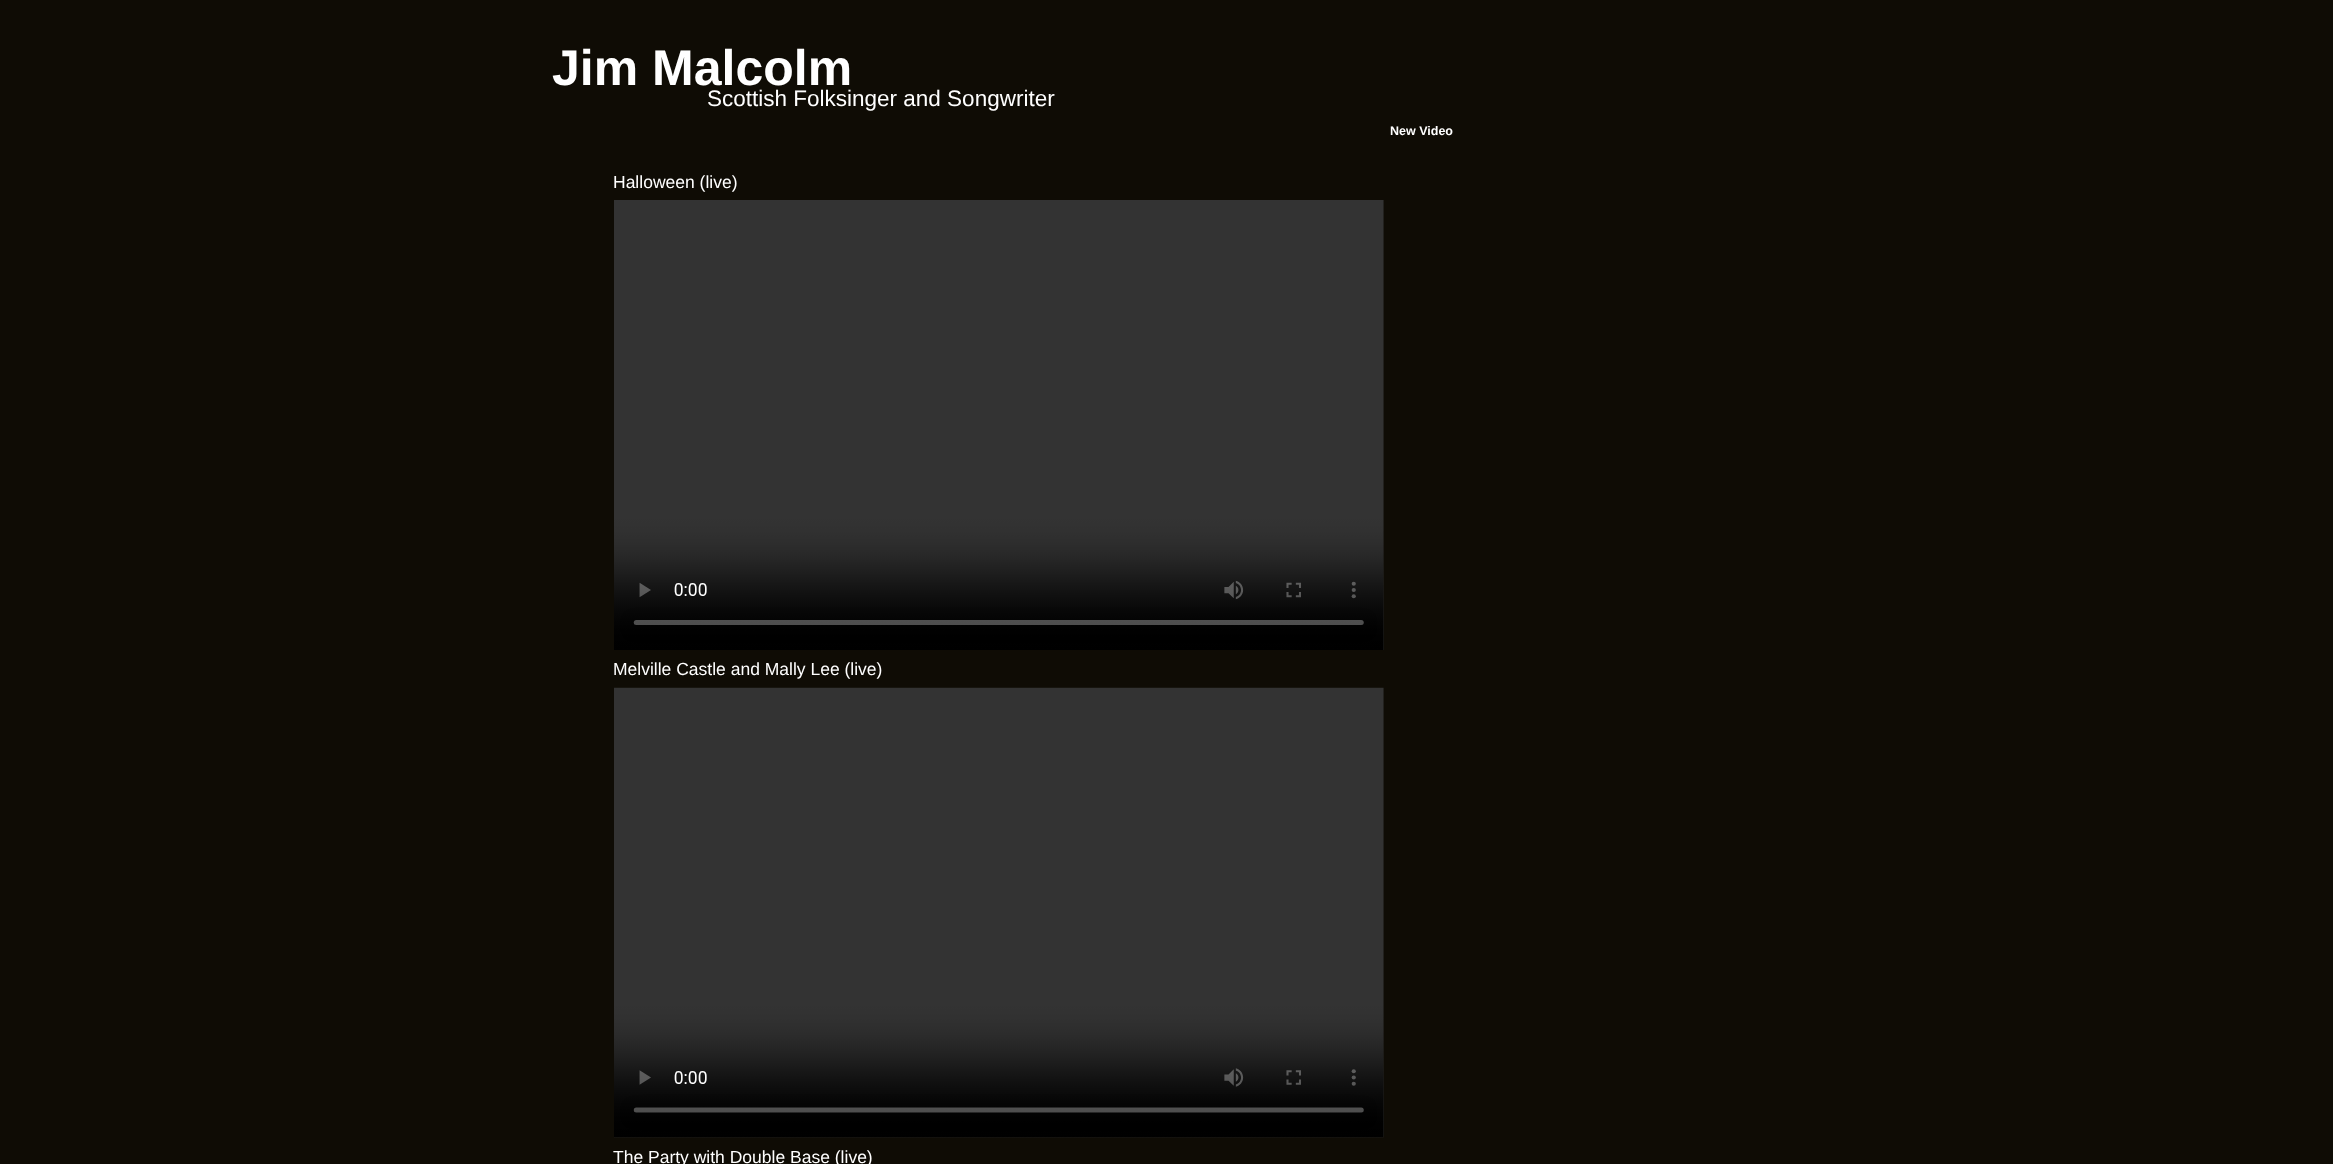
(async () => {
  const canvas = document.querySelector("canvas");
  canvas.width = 2333;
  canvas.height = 1164;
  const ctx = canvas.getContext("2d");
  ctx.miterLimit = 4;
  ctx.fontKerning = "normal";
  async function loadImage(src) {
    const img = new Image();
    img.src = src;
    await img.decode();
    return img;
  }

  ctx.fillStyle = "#0f0c05";
  ctx.fillRect(0, 0, 2333, 1164);
  ctx.drawImage(await loadImage("img/1.png"), 614, 200, 770, 450);
  ctx.drawImage(await loadImage("img/2.png"), 614, 687, 770, 451);
  ctx.font = "bold 50px Liberation Sans";
  ctx.fillStyle = "#ffffff";
  ctx.fillText("Jim Malcolm", 552, 85);
  ctx.font = "22.5px Liberation Sans";
  ctx.fillText("Scottish Folksinger and Songwriter", 707, 106);
  ctx.font = "bold 12.5px Liberation Sans";
  ctx.fillText("New Video", 1390, 135);
  ctx.font = "17.5px Liberation Sans";
  for (const [text, x, y] of [
    ["Halloween (live)", 613, 188],
    ["Melville Castle and Mally Lee (live)", 613, 675],
    ["The Party with Double Base (live)", 613, 1163],
  ]) {
    ctx.fillText(text, x, y);
  }
})();
